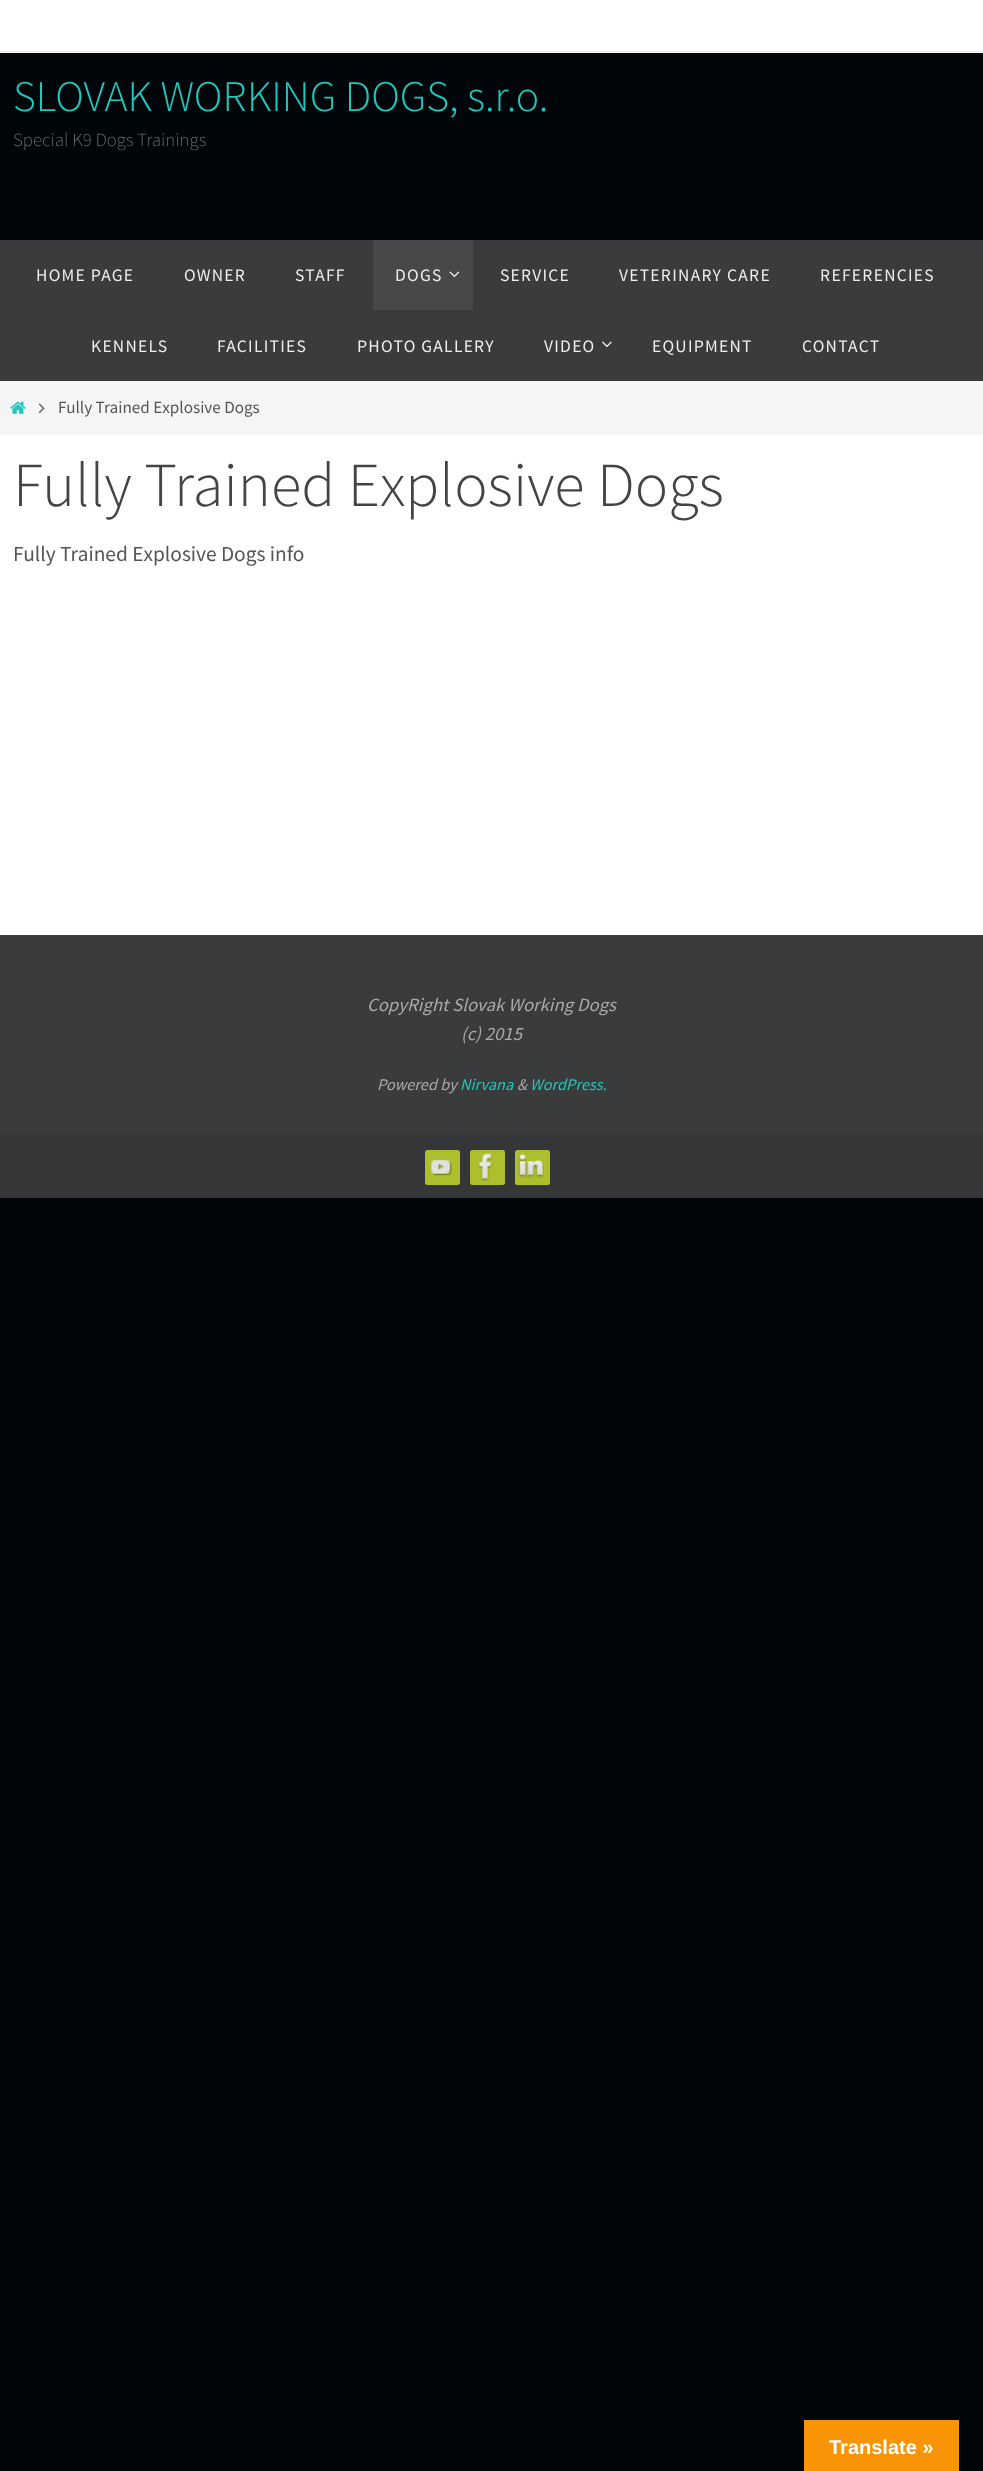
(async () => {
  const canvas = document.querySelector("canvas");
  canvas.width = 983;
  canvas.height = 2471;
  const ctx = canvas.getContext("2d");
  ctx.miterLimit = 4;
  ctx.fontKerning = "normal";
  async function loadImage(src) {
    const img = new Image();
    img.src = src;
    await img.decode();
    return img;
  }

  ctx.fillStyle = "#00050a";
  ctx.fillRect(0, 0, 983, 2471);
  for (const [x, y, w, h, color] of [
    [0, 0, 983, 53, "#ffffff"],
    [0, 51, 983, 1, "#ebebeb"],
    [0, 240, 983, 141, "#3a3b3d"],
    [373, 240, 100, 70, "#47484a"],
  ]) {
    ctx.fillStyle = color;
    ctx.fillRect(x, y, w, h);
  }
  ctx.drawImage(await loadImage("img/1.png"), 449, 271, 11, 7);
  ctx.drawImage(await loadImage("img/2.png"), 602, 341, 10, 7);
  ctx.fillStyle = "#f5f5f5";
  ctx.fillRect(0, 381, 983, 54);
  ctx.drawImage(await loadImage("img/3.png"), 10, 401, 16, 13);
  ctx.drawImage(await loadImage("img/4.png"), 38, 403, 7, 11);
  for (const [x, y, w, h, color] of [
    [0, 435, 983, 500, "#ffffff"],
    [0, 935, 983, 200, "#3a3b3d"],
    [0, 1135, 983, 63, "#353638"],
  ]) {
    ctx.fillStyle = color;
    ctx.fillRect(x, y, w, h);
  }
  ctx.fillStyle = "#adbf2d";
  ctx.beginPath();
  ctx.roundRect(425, 1150, 35, 35, 2.5);
  ctx.fill();
  ctx.drawImage(await loadImage("img/5.png"), 431, 1159, 21, 17);
  ctx.beginPath();
  ctx.roundRect(470, 1150, 35, 35, 2.5);
  ctx.fill();
  ctx.drawImage(await loadImage("img/6.png"), 478, 1153, 15, 28);
  ctx.beginPath();
  ctx.roundRect(515, 1150, 35, 35, 2.5);
  ctx.fill();
  ctx.drawImage(await loadImage("img/7.png"), 518, 1153, 26, 25);
  ctx.fillStyle = "#f89406";
  ctx.fillRect(804, 2420, 155, 51);
  ctx.font = "300 43.75px Source Sans Pro";
  ctx.fillStyle = "#1ec8bb";
  ctx.fillText("SLOVAK WORKING DOGS, s.r.o.", 13, 111);
  ctx.font = "300 18.75px Source Sans Pro";
  ctx.fillStyle = "#666666";
  ctx.fillText("Special K9 Dogs Trainings", 13, 146);
  ctx.letterSpacing = "1.25px";
  ctx.font = "17.5px Source Sans Pro";
  ctx.fillStyle = "#eeeeee";
  for (const [text, x, y] of [
    ["HOME PAGE", 36, 281],
    ["OWNER", 184, 281],
    ["STAFF", 295, 281],
    ["DOGS", 395, 281],
    ["SERVICE", 500, 281],
    ["VETERINARY CARE", 619, 281],
    ["REFERENCIES", 820, 281],
    ["KENNELS", 91, 352],
    ["FACILITIES", 217, 352],
    ["PHOTO GALLERY", 357, 352],
    ["VIDEO", 544, 352],
    ["EQUIPMENT", 652, 352],
    ["CONTACT", 802, 352],
  ]) {
    ctx.fillText(text, x, y);
  }
  ctx.letterSpacing = "0px";
  ctx.font = "17.1px Source Sans Pro";
  ctx.fillStyle = "#555555";
  ctx.fillText("Fully Trained Explosive Dogs", 58, 413);
  ctx.font = "300 62.5px Source Sans Pro";
  ctx.fillStyle = "#444444";
  ctx.fillText("Fully Trained Explosive Dogs", 13, 506);
  ctx.font = "21.4px Source Sans Pro";
  ctx.fillStyle = "#555555";
  ctx.fillText("Fully Trained Explosive Dogs info", 13, 561);
  ctx.font = "italic 18.75px Source Sans Pro";
  ctx.fillStyle = "#aaaaaa";
  ctx.fillText("CopyRight Slovak Working Dogs", 367, 1011);
  ctx.fillText("(c) 2015", 461, 1040);
  ctx.font = "italic 16.25px Source Sans Pro";
  ctx.fillText("Powered by", 377, 1090);
  ctx.fillStyle = "#1ec8bb";
  ctx.fillText("Nirvana", 460, 1090);
  ctx.fillStyle = "#aaaaaa";
  ctx.fillText("&", 517, 1090);
  ctx.fillStyle = "#1ec8bb";
  ctx.fillText("WordPress.", 530, 1090);
  ctx.font = "bold 20px Liberation Sans";
  ctx.fillStyle = "#ffffff";
  ctx.fillText("Translate »", 829, 2454);
})();
